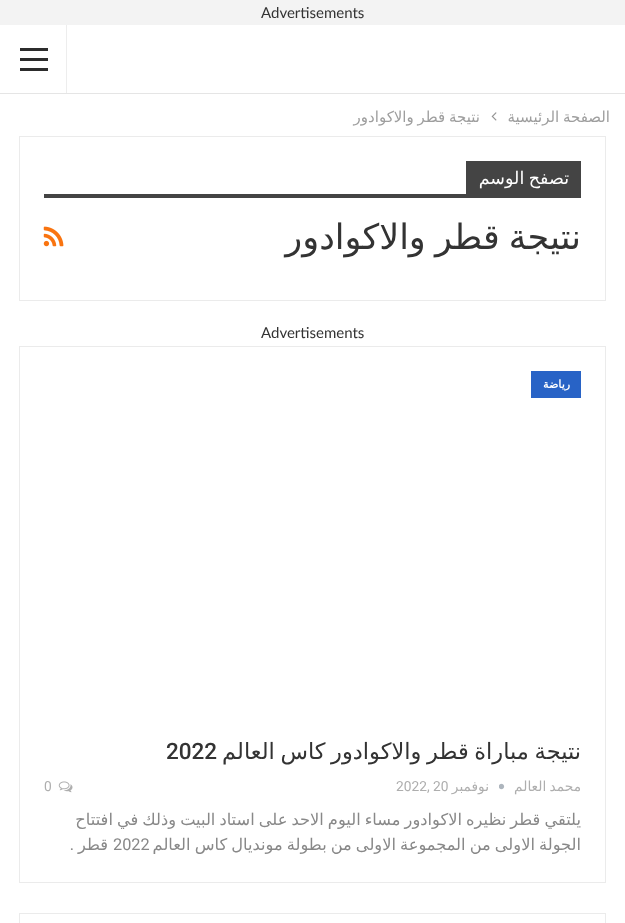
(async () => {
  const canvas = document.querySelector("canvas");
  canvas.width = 625;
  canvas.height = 923;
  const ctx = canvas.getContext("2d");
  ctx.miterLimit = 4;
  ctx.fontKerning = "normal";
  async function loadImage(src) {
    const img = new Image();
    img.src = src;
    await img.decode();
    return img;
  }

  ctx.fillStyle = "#f3f3f3";
  ctx.fillRect(0, 0, 625, 923);
  for (const [x, y, w, h, color] of [
    [0, 25, 625, 898, "#ffffff"],
    [0, 93, 625, 1, "#e5e5e5"],
    [66, 25, 1, 68, "#ededed"],
    [20, 58, 28, 3, "#2c2c2c"],
    [20, 48, 28, 3, "#2c2c2c"],
    [20, 68, 28, 3, "#2c2c2c"],
  ]) {
    ctx.fillStyle = color;
    ctx.fillRect(x, y, w, h);
  }
  ctx.drawImage(await loadImage("img/1.png"), 491, 112, 6, 9);
  ctx.strokeStyle = "#ebebeb";
  ctx.strokeRect(19.5, 136.5, 586, 164);
  ctx.fillStyle = "#444444";
  ctx.fillRect(466, 161, 115, 33);
  ctx.fillRect(44, 194, 537, 4);
  ctx.drawImage(await loadImage("img/2.png"), 43, 226, 21, 21);
  ctx.strokeRect(19.5, 346.5, 586, 536);
  ctx.fillStyle = "#2863c6";
  ctx.fillRect(531, 371, 50, 27);
  ctx.drawImage(await loadImage("img/3.png"), 499, 783, 6, 7);
  ctx.drawImage(await loadImage("img/4.png"), 58, 781, 15, 12);
  ctx.strokeRect(19.5, 913.5, 586, 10);
  ctx.font = "15px Lato";
  ctx.fillStyle = "#333333";
  ctx.fillText("Advertisements", 261, 18);
  ctx.wordSpacing = "-1px";
  ctx.direction = "rtl";
  ctx.font = "15px DejaVu Sans";
  ctx.fillStyle = "#9e9e9e";
  ctx.fillText("الصفحة الرئيسية", 610, 122);
  ctx.fillText("نتيجة قطر والاكوادور", 480, 122);
  ctx.font = "17.5px DejaVu Sans";
  ctx.fillStyle = "#ffffff";
  ctx.fillText("تصفح الوسم", 569, 184);
  ctx.wordSpacing = "-2px";
  ctx.font = "35px DejaVu Sans";
  ctx.fillStyle = "#333333";
  ctx.fillText("نتيجة قطر والاكوادور", 581, 249);
  ctx.wordSpacing = "0px";
  ctx.direction = "ltr";
  ctx.font = "15px Lato";
  ctx.fillText("Advertisements", 261, 338);
  ctx.direction = "rtl";
  ctx.font = "bold 11px DejaVu Sans";
  ctx.fillStyle = "#ffffff";
  ctx.fillText("رياضة", 570, 388);
  ctx.wordSpacing = "-1.5px";
  ctx.font = "22.5px DejaVu Sans";
  ctx.fillStyle = "#333333";
  ctx.fillText("نتيجة مباراة قطر والاكوادور كاس العالم", 581, 759);
  ctx.wordSpacing = "0px";
  ctx.direction = "ltr";
  ctx.font = "500 22.5px Roboto";
  ctx.fillText("2022", 166, 759);
  ctx.wordSpacing = "-1px";
  ctx.direction = "rtl";
  ctx.font = "13.75px DejaVu Sans";
  ctx.fillStyle = "#aeaeae";
  ctx.fillText("محمد العالم", 581, 791);
  ctx.wordSpacing = "0px";
  ctx.fillText("نوفمبر", 489, 791);
  ctx.direction = "ltr";
  ctx.font = "13.75px Roboto";
  ctx.fillText("2022, 20", 396, 791);
  ctx.fillText("0", 44, 791);
  ctx.wordSpacing = "-1.1px";
  ctx.direction = "rtl";
  ctx.font = "16.25px DejaVu Sans";
  ctx.fillStyle = "#888888";
  ctx.fillText("يلتقي قطر نظيره الاكوادور مساء اليوم الاحد على استاد البيت وذلك في افتتاح", 581, 825);
  ctx.fillText("الجولة الاولى من المجموعة الاولى من بطولة مونديال كاس العالم", 581, 850);
  ctx.wordSpacing = "0px";
  ctx.direction = "ltr";
  ctx.font = "16.25px Roboto";
  ctx.fillText("2022", 113, 850);
  ctx.direction = "rtl";
  ctx.font = "16.25px DejaVu Sans";
  ctx.fillText("قطر", 108, 850);
  ctx.font = "16.25px Roboto";
  ctx.fillText(".", 74, 850);
})();
